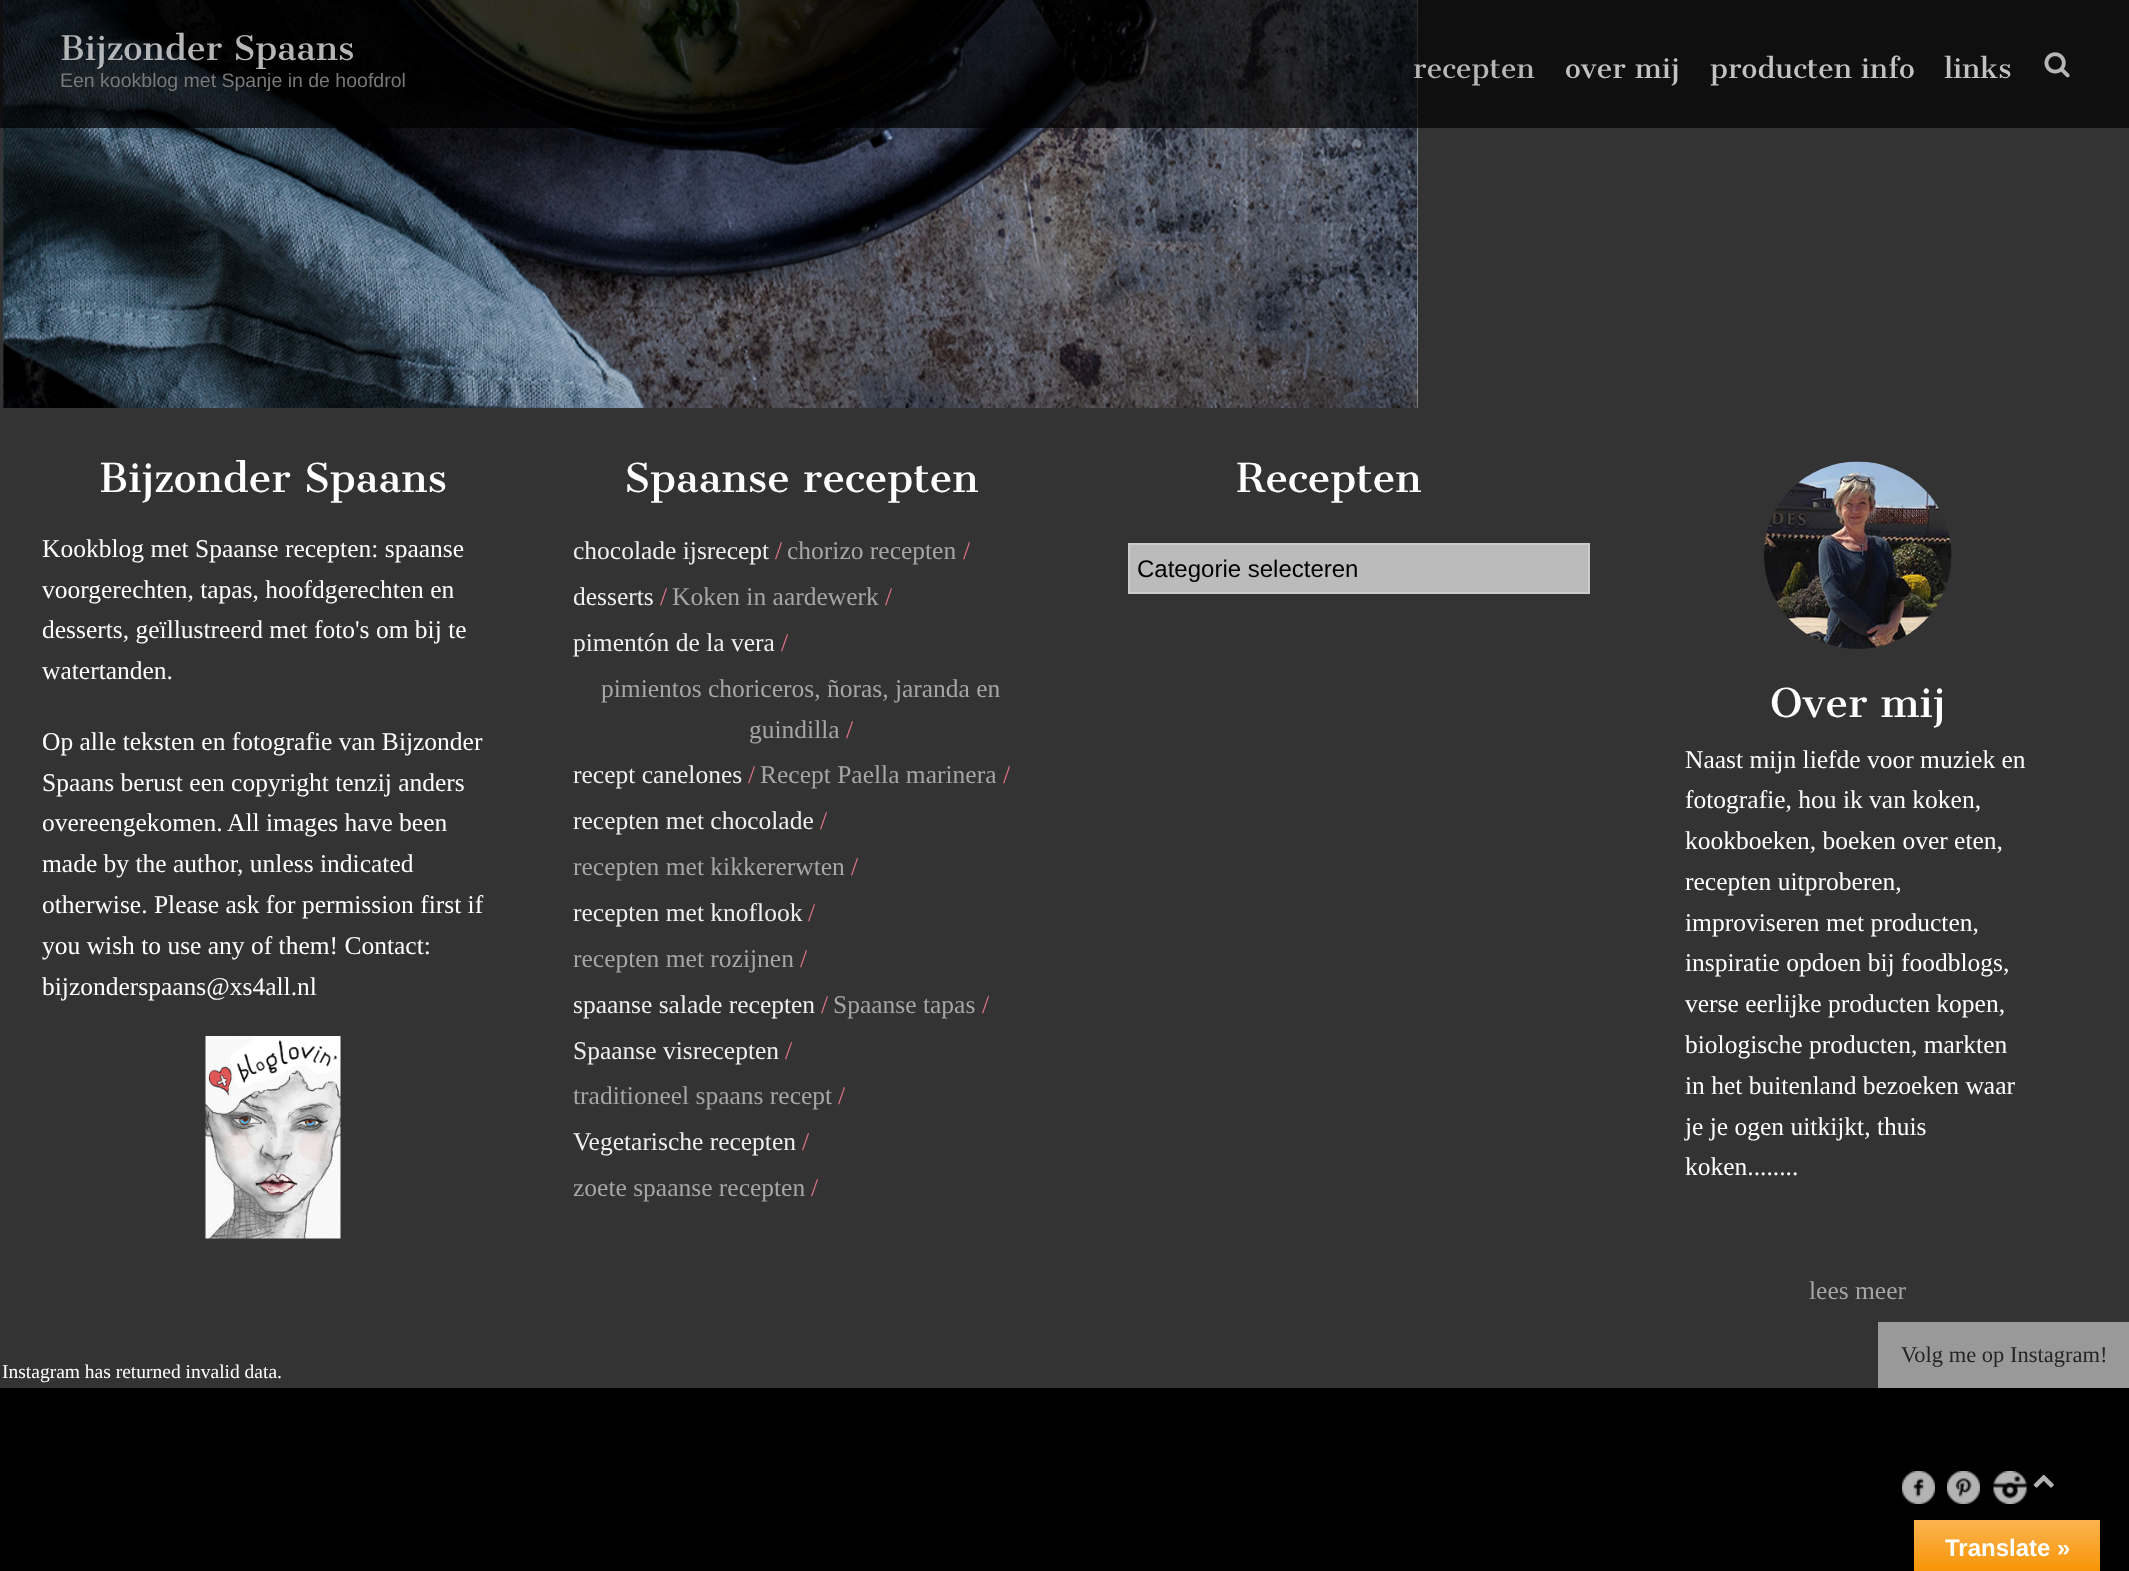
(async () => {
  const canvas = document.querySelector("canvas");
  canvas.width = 2129;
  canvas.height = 1571;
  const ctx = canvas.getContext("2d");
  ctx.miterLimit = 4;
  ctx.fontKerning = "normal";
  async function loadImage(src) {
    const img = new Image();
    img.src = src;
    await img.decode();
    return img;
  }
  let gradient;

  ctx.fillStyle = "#333333";
  ctx.fillRect(0, 0, 2129, 1571);
  ctx.fillStyle = "#cccccc";
  ctx.fillRect(1417, 0, 1, 408);
  ctx.drawImage(await loadImage("img/1.png"), 3, 0, 1415, 408);
  ctx.fillStyle = "rgba(0, 0, 0, 0.7)";
  ctx.fillRect(0, 0, 2129, 128);
  ctx.drawImage(await loadImage("img/2.png"), 2044, 52, 26, 26);
  ctx.drawImage(await loadImage("img/3.png"), 205, 1036, 136, 203);
  ctx.fillStyle = "#bbbbbb";
  ctx.beginPath();
  ctx.rect(1129, 544, 460, 49);
  ctx.fill();
  ctx.strokeStyle = "#cccccc";
  ctx.lineWidth = 2;
  ctx.stroke();
  ctx.drawImage(await loadImage("img/4.png"), 1764, 461, 188, 188);
  ctx.fillStyle = "#999999";
  ctx.fillRect(1878, 1322, 251, 66);
  ctx.fillStyle = "#000000";
  ctx.fillRect(0, 1388, 2129, 183);
  ctx.drawImage(await loadImage("img/5.png"), 1902, 1471, 33, 33);
  ctx.drawImage(await loadImage("img/6.png"), 1947, 1471, 33, 33);
  ctx.drawImage(await loadImage("img/7.png"), 1993, 1471, 34, 33);
  ctx.drawImage(await loadImage("img/8.png"), 2033, 1474, 21, 14);
  gradient = ctx.createLinearGradient(2007, 1520, 2007, 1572);
  gradient.addColorStop(0, "#fbb450");
  gradient.addColorStop(1, "#f89406");
  ctx.fillStyle = gradient;
  ctx.fillRect(1914, 1520, 186, 51);
  ctx.font = "33px Cantata One";
  ctx.fillStyle = "#b5b6b7";
  ctx.fillText("Bijzonder Spaans", 60, 60);
  ctx.font = "19.5px Liberation Sans";
  ctx.fillStyle = "#78797a";
  ctx.fillText("Een kookblog met Spanje in de hoofdrol", 60, 87);
  ctx.font = "27px Cantata One";
  ctx.fillStyle = "#b5b6b7";
  ctx.fillText("recepten", 1413, 78);
  ctx.fillStyle = "#c2c2c2";
  for (const [text, x, y] of [
    ["over mij", 1565, 78],
    ["producten info", 1710, 78],
    ["links", 1944, 78],
  ]) {
    ctx.fillText(text, x, y);
  }
  ctx.font = "39px Cantata One";
  ctx.fillStyle = "#ffffff";
  ctx.fillText("Bijzonder Spaans", 99, 492);
  ctx.font = "25.5px Liberation Serif";
  for (const [text, x, y] of [
    ["Kookblog met Spaanse recepten: spaanse", 42, 557],
    ["voorgerechten, tapas, hoofdgerechten en", 42, 598],
    ["desserts, geïllustreerd met foto's om bij te", 42, 638],
    ["watertanden.", 42, 679],
    ["Op alle teksten en fotografie van Bijzonder", 42, 750],
    ["Spaans berust een copyright tenzij anders", 42, 791],
    ["overeengekomen.", 42, 831],
    ["All images have been", 227, 831],
    ["made by the author, unless indicated", 42, 872],
    ["otherwise. Please ask for permission first if", 42, 913],
    ["you wish to use any of them! Contact:", 42, 954],
    ["bijzonderspaans@xs4all.nl", 42, 995],
  ]) {
    ctx.fillText(text, x, y);
  }
  ctx.font = "39px Cantata One";
  ctx.fillText("Spaanse recepten", 624, 492);
  ctx.font = "25.5px Liberation Serif";
  ctx.fillStyle = "#efefef";
  ctx.fillText("chocolade ijsrecept", 573, 559);
  ctx.fillStyle = "#dd7385";
  ctx.fillText("/", 775, 559);
  ctx.fillStyle = "#a6a6a6";
  ctx.fillText("chorizo recepten", 787, 559);
  ctx.fillStyle = "#dd7385";
  ctx.fillText("/", 963, 559);
  ctx.fillStyle = "#efefef";
  ctx.fillText("desserts", 573, 605);
  ctx.fillStyle = "#dd7385";
  ctx.fillText("/", 660, 605);
  ctx.fillStyle = "#a6a6a6";
  ctx.fillText("Koken in aardewerk", 672, 605);
  ctx.fillStyle = "#dd7385";
  ctx.fillText("/", 885, 605);
  ctx.fillStyle = "#efefef";
  ctx.fillText("pimentón de la vera", 573, 651);
  ctx.fillStyle = "#dd7385";
  ctx.fillText("/", 781, 651);
  ctx.fillStyle = "#a6a6a6";
  ctx.fillText("pimientos choriceros, ñoras, jaranda en", 601, 697);
  ctx.fillText("guindilla", 749, 738);
  ctx.fillStyle = "#dd7385";
  ctx.fillText("/", 846, 738);
  ctx.fillStyle = "#efefef";
  ctx.fillText("recept canelones", 573, 783);
  ctx.fillStyle = "#dd7385";
  ctx.fillText("/", 748, 783);
  ctx.fillStyle = "#a6a6a6";
  ctx.fillText("Recept Paella marinera", 760, 783);
  ctx.fillStyle = "#dd7385";
  ctx.fillText("/", 1003, 783);
  ctx.fillStyle = "#efefef";
  ctx.fillText("recepten met chocolade", 573, 829);
  ctx.fillStyle = "#dd7385";
  ctx.fillText("/", 820, 829);
  ctx.fillStyle = "#a6a6a6";
  ctx.fillText("recepten met kikkererwten", 573, 875);
  ctx.fillStyle = "#dd7385";
  ctx.fillText("/", 851, 875);
  ctx.fillStyle = "#efefef";
  ctx.fillText("recepten met knoflook", 573, 921);
  ctx.fillStyle = "#dd7385";
  ctx.fillText("/", 808, 921);
  ctx.fillStyle = "#a6a6a6";
  ctx.fillText("recepten met rozijnen", 573, 967);
  ctx.fillStyle = "#dd7385";
  ctx.fillText("/", 800, 967);
  ctx.fillStyle = "#efefef";
  ctx.fillText("spaanse salade recepten", 573, 1013);
  ctx.fillStyle = "#dd7385";
  ctx.fillText("/", 821, 1013);
  ctx.fillStyle = "#a6a6a6";
  ctx.fillText("Spaanse tapas", 833, 1013);
  ctx.fillStyle = "#dd7385";
  ctx.fillText("/", 982, 1013);
  ctx.fillStyle = "#efefef";
  ctx.fillText("Spaanse visrecepten", 573, 1059);
  ctx.fillStyle = "#dd7385";
  ctx.fillText("/", 785, 1059);
  ctx.fillStyle = "#a6a6a6";
  ctx.fillText("traditioneel spaans recept", 573, 1104);
  ctx.fillStyle = "#dd7385";
  ctx.fillText("/", 838, 1104);
  ctx.fillStyle = "#efefef";
  ctx.fillText("Vegetarische recepten", 573, 1150);
  ctx.fillStyle = "#dd7385";
  ctx.fillText("/", 802, 1150);
  ctx.fillStyle = "#a6a6a6";
  ctx.fillText("zoete spaanse recepten", 573, 1196);
  ctx.fillStyle = "#dd7385";
  ctx.fillText("/", 811, 1196);
  ctx.font = "39px Cantata One";
  ctx.fillStyle = "#ffffff";
  ctx.fillText("Recepten", 1236, 492);
  ctx.font = "24px Liberation Sans";
  ctx.fillStyle = "#000000";
  ctx.fillText("Categorie selecteren", 1137, 577);
  ctx.font = "39px Cantata One";
  ctx.fillStyle = "#ffffff";
  ctx.fillText("Over mij", 1770, 717);
  ctx.font = "25.5px Liberation Serif";
  for (const [text, x, y] of [
    ["Naast mijn liefde voor muziek en", 1685, 768],
    ["fotografie, hou ik van koken,", 1685, 808],
    ["kookboeken, boeken over eten,", 1685, 849],
    ["recepten uitproberen,", 1685, 890],
    ["improviseren met producten,", 1685, 931],
    ["inspiratie opdoen bij foodblogs,", 1685, 971],
    ["verse eerlijke producten kopen,", 1685, 1012],
    ["biologische producten, markten", 1685, 1053],
    ["in het buitenland bezoeken waar", 1685, 1094],
    ["je je ogen uitkijkt, thuis", 1685, 1135],
    ["koken........", 1685, 1175],
  ]) {
    ctx.fillText(text, x, y);
  }
  ctx.fillStyle = "#a6a6a6";
  ctx.fillText("lees meer", 1809, 1299);
  ctx.font = "22.5px Liberation Serif";
  ctx.fillStyle = "#242427";
  ctx.fillText("Volg me op Instagram!", 1901, 1362);
  ctx.font = "19.5px Liberation Serif";
  ctx.fillStyle = "#ffffff";
  ctx.fillText("Instagram has returned invalid data.", 2, 1378);
  ctx.font = "bold 24px Liberation Sans";
  ctx.fillText("Translate »", 1945, 1556);
})();
